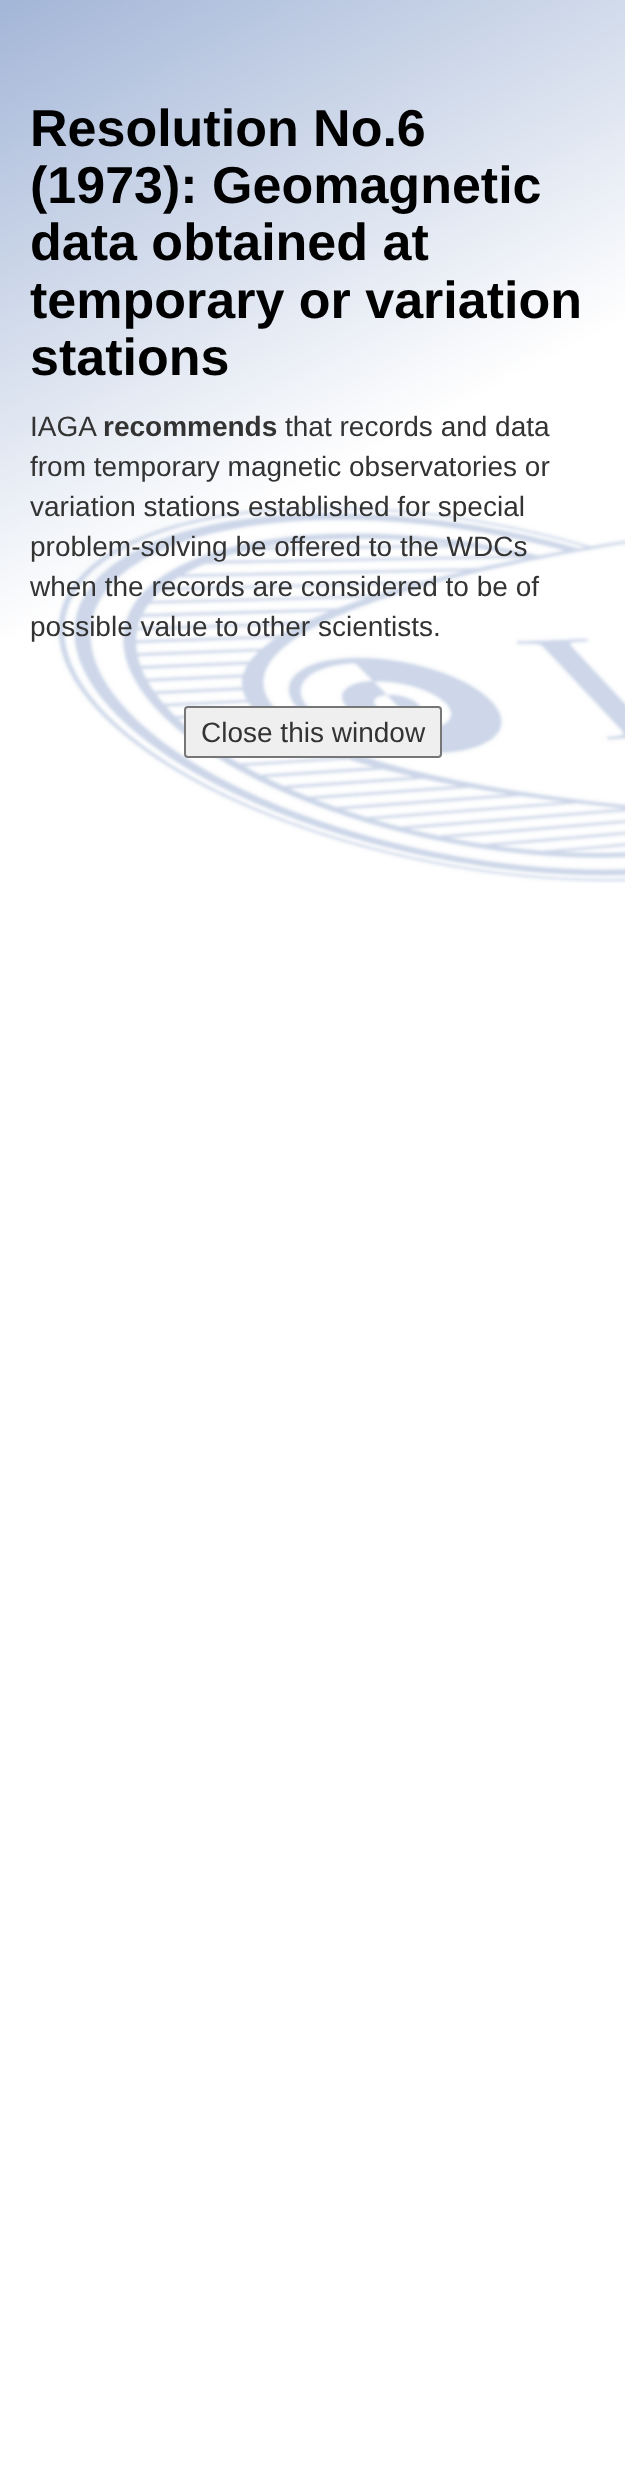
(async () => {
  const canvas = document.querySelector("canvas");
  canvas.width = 625;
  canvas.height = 2473;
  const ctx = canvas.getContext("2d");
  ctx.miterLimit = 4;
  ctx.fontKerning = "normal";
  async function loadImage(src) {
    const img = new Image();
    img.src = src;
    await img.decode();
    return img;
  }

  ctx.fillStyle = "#ffffff";
  ctx.fillRect(0, 0, 625, 2473);
  ctx.drawImage(await loadImage("img/1.png"), 0, 0, 625, 883);
  ctx.fillStyle = "#efefef";
  ctx.beginPath();
  ctx.roundRect(185, 707, 256, 50, 3);
  ctx.fill();
  ctx.strokeStyle = "#767676";
  ctx.lineWidth = 2;
  ctx.stroke();
  ctx.font = "bold 52px Liberation Sans";
  ctx.fillStyle = "#000000";
  for (const [text, x, y] of [
    ["Resolution No.6", 30, 146],
    ["(1973): Geomagnetic", 30, 203],
    ["data obtained at", 30, 260],
    ["temporary or variation", 30, 318],
    ["stations", 30, 375],
  ]) {
    ctx.fillText(text, x, y);
  }
  ctx.font = "28px Liberation Sans";
  ctx.fillStyle = "#333333";
  ctx.fillText("IAGA", 30, 436);
  ctx.font = "bold 28px Liberation Sans";
  ctx.fillText("recommends", 103, 436);
  ctx.font = "28px Liberation Sans";
  for (const [text, x, y] of [
    ["that records and data", 285, 436],
    ["from temporary magnetic observatories or", 30, 476],
    ["variation stations established for special", 30, 516],
    ["problem-solving be offered to the WDCs", 30, 556],
    ["when the records are considered to be of", 30, 596],
    ["possible value to other scientists.", 30, 636],
    ["Close this window", 201, 742],
  ]) {
    ctx.fillText(text, x, y);
  }
})();
